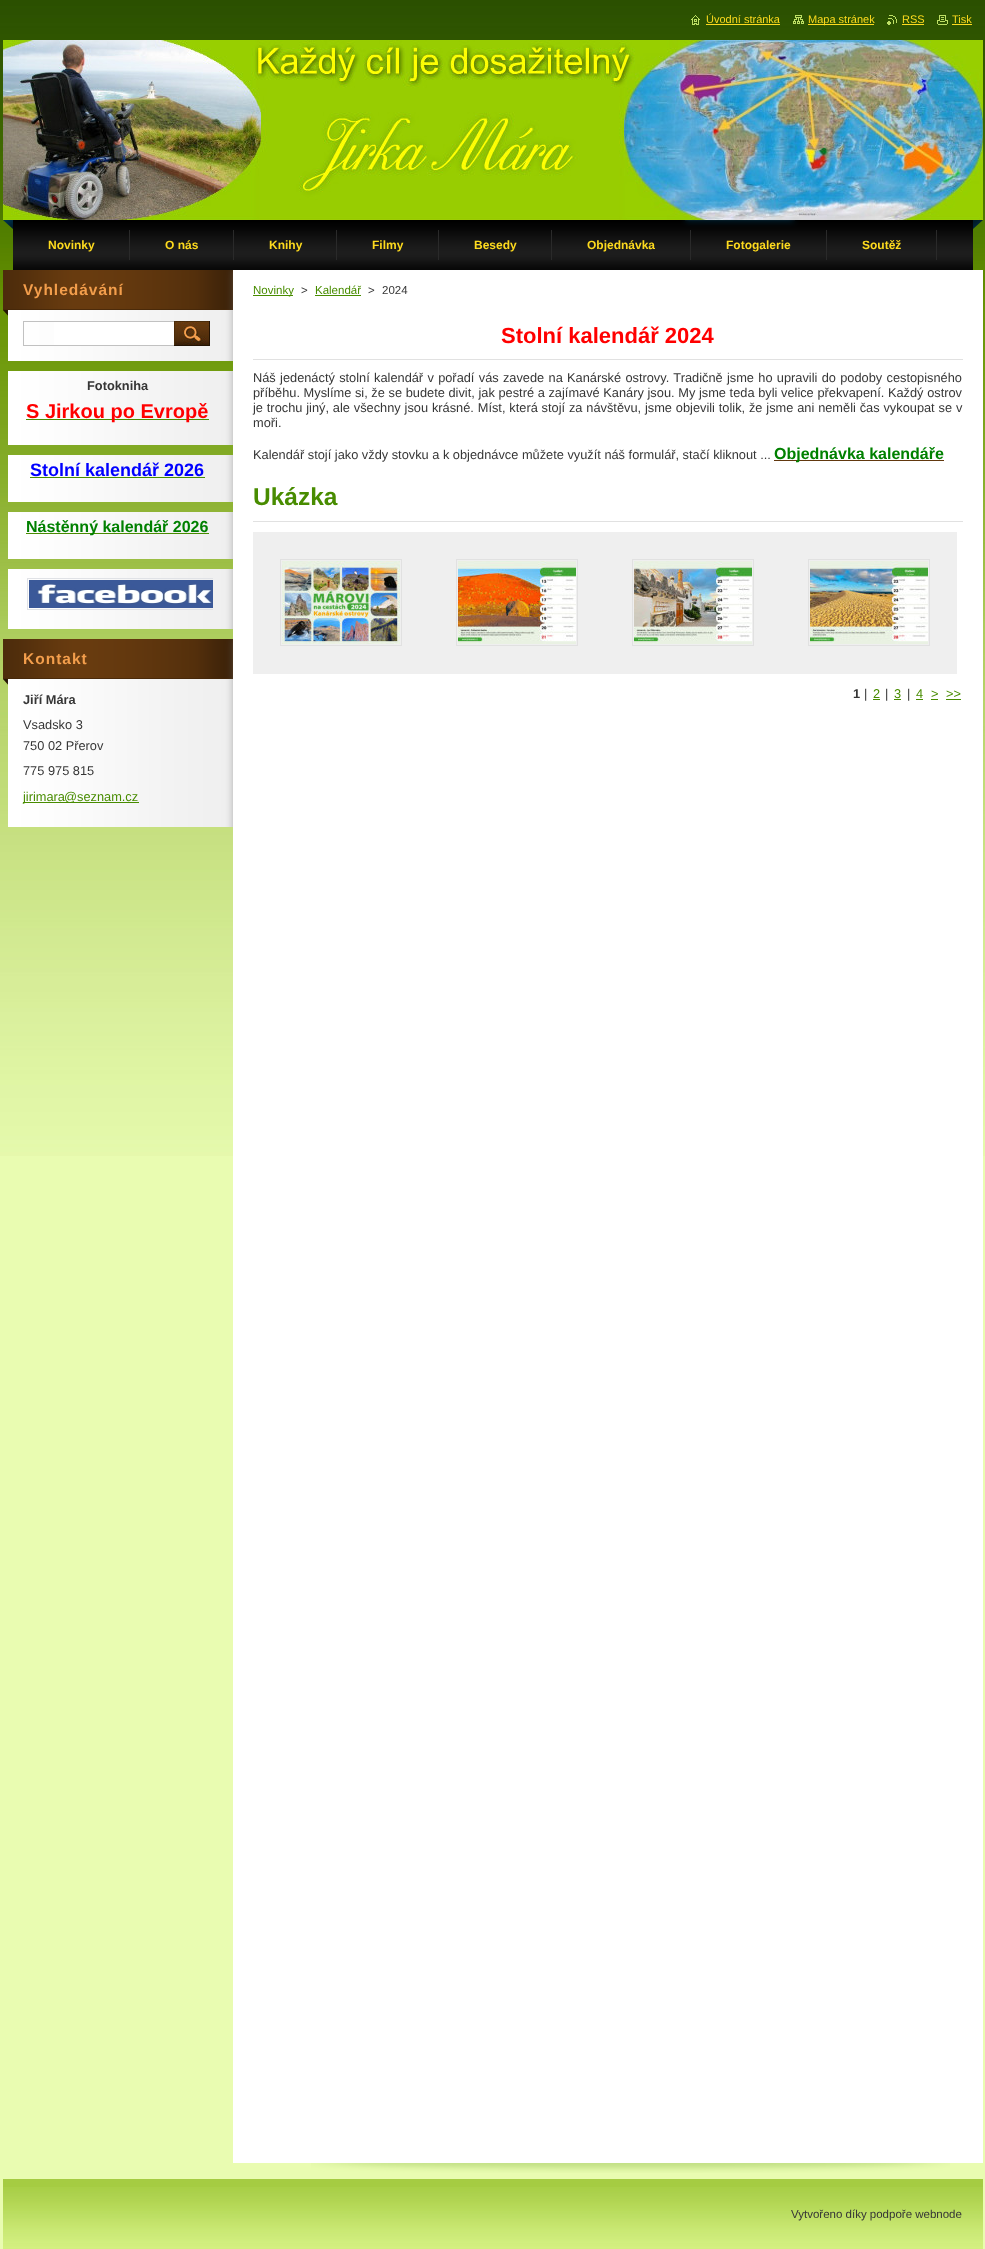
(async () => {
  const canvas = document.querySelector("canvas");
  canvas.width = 985;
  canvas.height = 2249;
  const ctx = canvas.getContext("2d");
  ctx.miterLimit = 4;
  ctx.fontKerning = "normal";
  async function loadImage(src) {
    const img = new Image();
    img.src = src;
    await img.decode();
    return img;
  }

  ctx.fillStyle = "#e9fcb1";
  ctx.fillRect(0, 0, 985, 2249);
  ctx.drawImage(await loadImage("img/1.png"), 0, 0, 985, 1156);
  ctx.drawImage(await loadImage("img/2.png"), 691, 15, 9, 10);
  ctx.fillStyle = "#fdda1e";
  ctx.fillRect(706, 24, 74, 1);
  ctx.drawImage(await loadImage("img/3.png"), 793, 15, 11, 9);
  ctx.fillRect(808, 24, 66, 1);
  ctx.drawImage(await loadImage("img/4.png"), 887, 15, 10, 10);
  ctx.fillRect(902, 24, 22, 1);
  ctx.drawImage(await loadImage("img/5.png"), 937, 15, 11, 10);
  ctx.fillRect(952, 24, 20, 1);
  ctx.drawImage(await loadImage("img/6.png"), 3, 40, 980, 180);
  ctx.drawImage(await loadImage("img/7.png"), 3, 220, 980, 50);
  for (const [x, y, w, h, color] of [
    [129, 230, 1, 30, "#2a2a2a"],
    [233, 230, 1, 30, "#2a2a2a"],
    [336, 230, 1, 30, "#2a2a2a"],
    [438, 230, 1, 30, "#2a2a2a"],
    [551, 230, 1, 30, "#2a2a2a"],
    [690, 230, 1, 30, "#2a2a2a"],
    [826, 230, 1, 30, "#2a2a2a"],
    [936, 230, 1, 30, "#2a2a2a"],
  ]) {
    ctx.fillStyle = color;
    ctx.fillRect(x, y, w, h);
  }
  ctx.drawImage(await loadImage("img/8.png"), 8, 316, 225, 45);
  ctx.drawImage(await loadImage("img/9.png"), 3, 270, 230, 46);
  ctx.fillStyle = "#ffffff";
  ctx.fillRect(54, 322, 120, 23);
  ctx.strokeStyle = "#c1c1c1";
  ctx.strokeRect(23.5, 321.5, 151, 24);
  ctx.drawImage(await loadImage("img/10.png"), 174, 321, 36, 25);
  ctx.drawImage(await loadImage("img/11.png"), 8, 371, 225, 74);
  ctx.fillStyle = "#488c00";
  ctx.fillRect(26, 419, 183, 1);
  ctx.drawImage(await loadImage("img/12.png"), 8, 455, 225, 47);
  ctx.fillRect(30, 477, 175, 1);
  ctx.drawImage(await loadImage("img/12.png"), 8, 512, 225, 47);
  ctx.fillRect(26, 533, 183, 1);
  ctx.drawImage(await loadImage("img/13.png"), 8, 569, 225, 60);
  ctx.save();
  ctx.beginPath();
  ctx.rect(23, 569, 190, 60);
  ctx.clip();
  ctx.strokeStyle = "#e0e2e6";
  ctx.strokeRect(27.5, 578.5, 193, 31);
  ctx.restore();
  ctx.drawImage(await loadImage("img/14.png"), 29, 580, 184, 28);
  ctx.drawImage(await loadImage("img/15.png"), 8, 685, 225, 142);
  ctx.drawImage(await loadImage("img/16.png"), 3, 639, 230, 46);
  ctx.fillRect(23, 802, 41, 1);
  ctx.fillRect(64, 802, 75, 1);
  ctx.drawImage(await loadImage("img/17.png"), 311, 2163, 639, 10);
  for (const [x, y, w, h, color] of [
    [233, 270, 750, 1893, "#ffffff"],
    [253, 295, 40, 1, "#488c00"],
    [315, 295, 46, 1, "#488c00"],
    [253, 359, 710, 1, "#e1e1e1"],
    [774, 460, 170, 1, "#62380e"],
    [253, 521, 710, 1, "#e1e1e1"],
    [253, 532, 704, 142, "#efefef"],
  ]) {
    ctx.fillStyle = color;
    ctx.fillRect(x, y, w, h);
  }
  ctx.strokeStyle = "#e1e1e1";
  ctx.strokeRect(280.5, 559.5, 121, 86);
  ctx.drawImage(await loadImage("img/18.png"), 282, 561, 118, 83);
  ctx.strokeRect(456.5, 559.5, 121, 86);
  ctx.drawImage(await loadImage("img/19.png"), 458, 561, 118, 83);
  ctx.strokeRect(632.5, 559.5, 121, 86);
  ctx.drawImage(await loadImage("img/20.png"), 634, 561, 118, 83);
  ctx.strokeRect(808.5, 559.5, 121, 86);
  ctx.drawImage(await loadImage("img/21.png"), 810, 561, 118, 83);
  for (const [x, y, w, h, color] of [
    [873, 699, 7, 1, "#488c00"],
    [894, 699, 7, 1, "#488c00"],
    [916, 699, 7, 1, "#488c00"],
    [931, 699, 7, 1, "#488c00"],
    [946, 699, 15, 1, "#488c00"],
    [3, 2179, 980, 8, "#a5cc42"],
  ]) {
    ctx.fillStyle = color;
    ctx.fillRect(x, y, w, h);
  }
  ctx.drawImage(await loadImage("img/22.png"), 3, 2187, 980, 62);
  ctx.font = "11px Liberation Sans";
  ctx.fillStyle = "#fdda1e";
  for (const [text, x, y] of [
    ["Úvodní stránka", 706, 23],
    ["Mapa stránek", 808, 23],
    ["RSS", 902, 23],
    ["Tisk", 952, 23],
  ]) {
    ctx.fillText(text, x, y);
  }
  ctx.font = "bold 12px Liberation Sans";
  for (const [text, x, y] of [
    ["Novinky", 48, 249],
    ["O nás", 165, 249],
    ["Knihy", 269, 249],
    ["Filmy", 372, 249],
    ["Besedy", 474, 249],
    ["Objednávka", 587, 249],
    ["Fotogalerie", 726, 249],
    ["Soutěž", 862, 249],
  ]) {
    ctx.fillText(text, x, y);
  }
  ctx.letterSpacing = "1px";
  ctx.font = "bold 15.5px Liberation Sans";
  ctx.fillStyle = "#f39e4c";
  ctx.fillText("Vyhledávání", 23, 295);
  ctx.letterSpacing = "0px";
  ctx.font = "bold 12.8px Liberation Sans";
  ctx.fillStyle = "#363636";
  ctx.fillText("Fotokniha", 87, 390);
  ctx.font = "bold 20px Liberation Sans";
  ctx.fillStyle = "#ff0000";
  ctx.fillText("S Jirkou po Evropě", 26, 418);
  ctx.font = "bold 18px Liberation Sans";
  ctx.fillStyle = "#0000ff";
  ctx.fillText("Stolní kalendář 2026", 30, 476);
  ctx.font = "bold 16px Liberation Sans";
  ctx.fillStyle = "#008000";
  ctx.fillText("Nástěnný kalendář 2026", 26, 532);
  ctx.letterSpacing = "1px";
  ctx.font = "bold 15.5px Liberation Sans";
  ctx.fillStyle = "#f39e4c";
  ctx.fillText("Kontakt", 23, 664);
  ctx.letterSpacing = "0px";
  ctx.font = "bold 12.8px Liberation Sans";
  ctx.fillStyle = "#363636";
  ctx.fillText("Jiří Mára", 23, 704);
  ctx.font = "12.8px Liberation Sans";
  for (const [text, x, y] of [
    ["Vsadsko 3", 23, 729],
    ["750 02 Přerov", 23, 750],
    ["775 975 815", 23, 775],
  ]) {
    ctx.fillText(text, x, y);
  }
  ctx.fillStyle = "#488c00";
  ctx.fillText("jirimara", 23, 801);
  ctx.fillText("@seznam.cz", 64, 801);
  ctx.font = "11.5px Liberation Sans";
  ctx.fillText("Novinky", 253, 294);
  ctx.fillStyle = "#363636";
  ctx.fillText(">", 301, 294);
  ctx.fillStyle = "#488c00";
  ctx.fillText("Kalendář", 315, 294);
  ctx.fillStyle = "#363636";
  ctx.fillText(">", 368, 294);
  ctx.fillText("2024", 382, 294);
  ctx.font = "bold 22px Liberation Sans";
  ctx.fillStyle = "#ff0000";
  ctx.fillText("Stolní kalendář 2024", 501, 343);
  ctx.wordSpacing = "0.75px";
  ctx.font = "12.8px Liberation Sans";
  ctx.fillStyle = "#363636";
  ctx.fillText("Náš jedenáctý stolní kalendář v pořadí vás zavede na Kanárské ostrovy. Tradičně jsme ho upravili do podoby cestopisného", 253, 382);
  ctx.wordSpacing = "0.1px";
  ctx.fillText("příběhu. Myslíme si, že se budete divit, jak pestré a zajímavé Kanáry jsou. My jsme teda byli velice překvapení. Každý ostrov", 253, 397);
  ctx.wordSpacing = "0.3px";
  ctx.fillText("je trochu jiný, ale všechny jsou krásné. Míst, která stojí za návštěvu, jsme objevili tolik, že jsme ani neměli čas vykoupat se v", 253, 412);
  ctx.wordSpacing = "0px";
  ctx.fillText("moři.", 253, 427);
  ctx.fillText("Kalendář stojí jako vždy stovku a k objednávce můžete využít náš formulář, stačí kliknout ...", 253, 459);
  ctx.font = "bold 16px Liberation Sans";
  ctx.fillStyle = "#008000";
  ctx.fillText("Objednávka kalendáře", 774, 459);
  ctx.font = "bold 24.5px Liberation Sans";
  ctx.fillStyle = "#488c00";
  ctx.fillText("Ukázka", 253, 505);
  ctx.font = "bold 12.8px Liberation Sans";
  ctx.fillStyle = "#363636";
  ctx.fillText("1", 853, 698);
  ctx.font = "12.8px Liberation Sans";
  ctx.fillText("|", 864, 698);
  ctx.fillStyle = "#488c00";
  ctx.fillText("2", 873, 698);
  ctx.fillStyle = "#363636";
  ctx.fillText("|", 885, 698);
  ctx.fillStyle = "#488c00";
  ctx.fillText("3", 894, 698);
  ctx.fillStyle = "#363636";
  ctx.fillText("|", 907, 698);
  ctx.fillStyle = "#488c00";
  for (const [text, x, y] of [
    ["4", 916, 698],
    [">", 931, 698],
    [">>", 946, 698],
  ]) {
    ctx.fillText(text, x, y);
  }
  ctx.font = "11.5px Liberation Sans";
  ctx.fillStyle = "#363636";
  ctx.fillText("Vytvořeno díky podpoře webnode", 791, 2218);
})();
